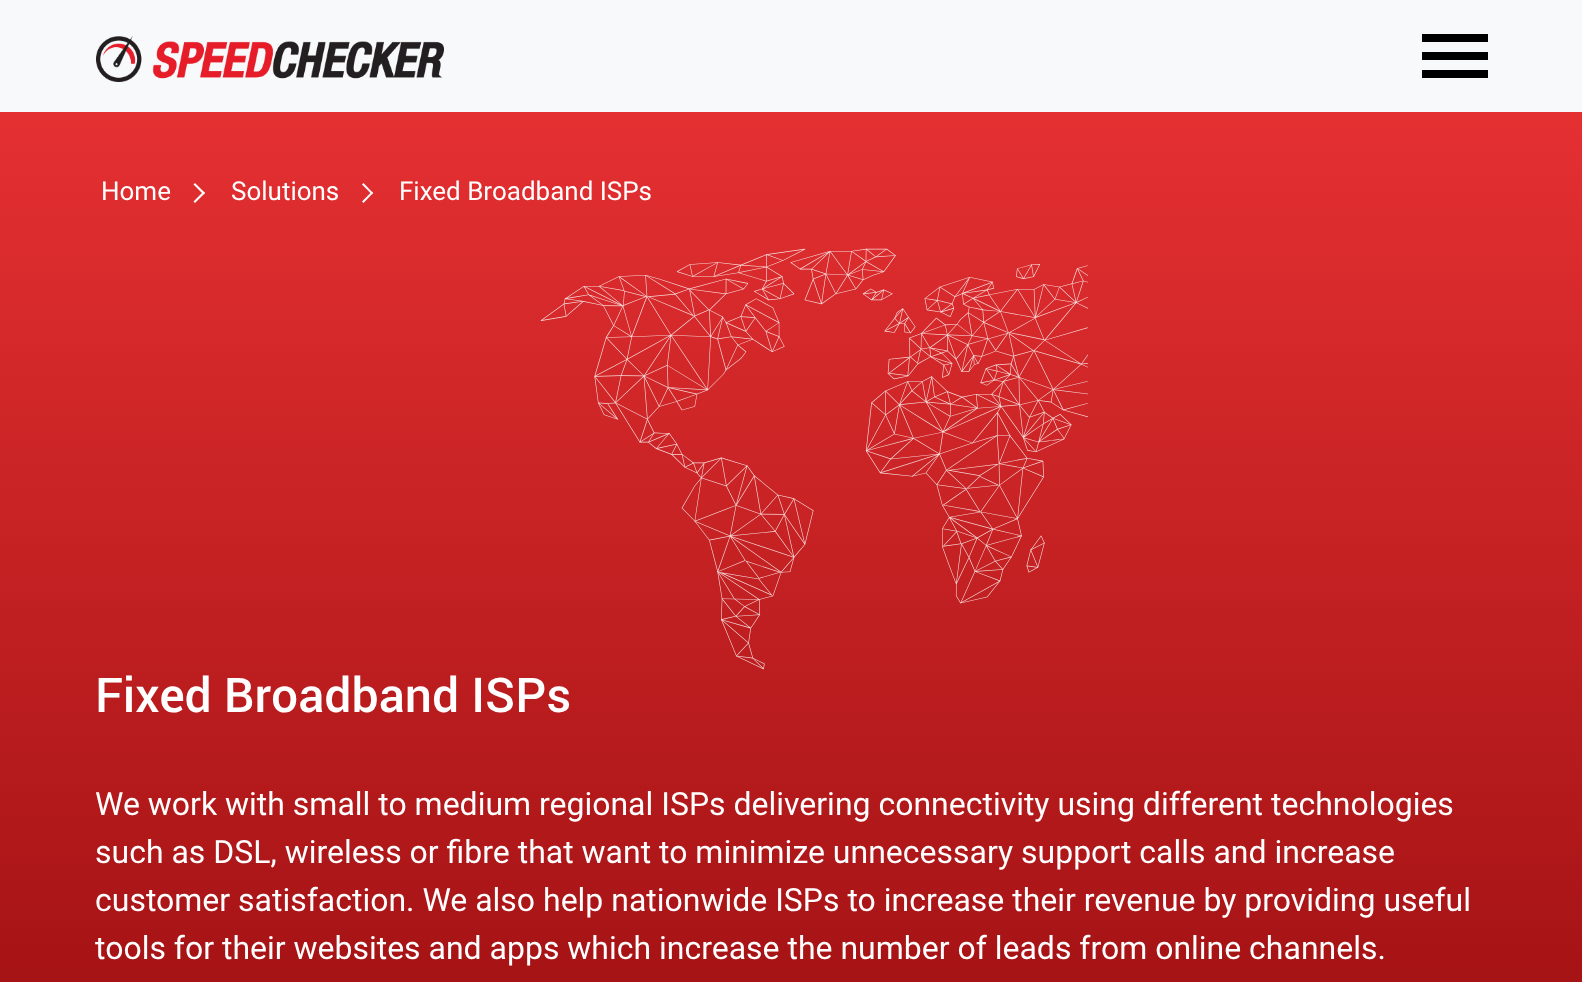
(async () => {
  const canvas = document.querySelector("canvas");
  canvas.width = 1582;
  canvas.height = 982;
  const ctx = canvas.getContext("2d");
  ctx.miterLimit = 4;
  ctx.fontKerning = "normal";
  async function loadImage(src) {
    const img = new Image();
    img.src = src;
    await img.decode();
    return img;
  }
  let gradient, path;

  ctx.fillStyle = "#f8f9fa";
  ctx.fillRect(0, 0, 1582, 982);
  ctx.drawImage(await loadImage("img/1.png"), 96, 36, 348, 46);
  for (const [x, y, w, h, color] of [
    [1422, 34, 66, 8, "#000000"],
    [1422, 52, 66, 8, "#000000"],
    [1422, 70, 66, 8, "#000000"],
  ]) {
    ctx.fillStyle = color;
    ctx.fillRect(x, y, w, h);
  }
  gradient = ctx.createLinearGradient(791, 112, 791, 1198);
  gradient.addColorStop(0, "#e53032");
  gradient.addColorStop(1, "#960c0e");
  ctx.fillStyle = gradient;
  ctx.fillRect(0, 112, 1582, 870);
  ctx.fillStyle = "#ffffff";
  path = new Path2D("M205 193L195 203L193.5 201.5L203.5 191.5Z");
  ctx.fill(path);
  path = new Path2D("M205 193L203.5 194.5L193.5 184.5L195 183Z");
  ctx.fill(path);
  path = new Path2D("M373 193L363.5 203L362 201.5L372 191.5Z");
  ctx.fill(path);
  path = new Path2D("M373 193L372 194.5L362 184.5L363.5 183Z");
  ctx.fill(path);
  ctx.drawImage(await loadImage("img/2.png"), 540, 248, 548, 422);
  ctx.font = "26px Roboto";
  for (const [text, x, y] of [
    ["Home", 101, 200],
    ["Solutions", 231, 200],
    ["Fixed Broadband ISPs", 399, 200],
  ]) {
    ctx.fillText(text, x, y);
  }
  ctx.font = "500 48px Roboto";
  ctx.fillText("Fixed Broadband ISPs", 95, 712);
  ctx.font = "32px Roboto";
  for (const [text, x, y] of [
    ["We work with small to medium regional ISPs delivering connectivity using different technologies", 95, 815],
    ["such as DSL, wireless or fibre that want to minimize unnecessary support calls and increase", 95, 863],
    ["customer satisfaction. We also help nationwide ISPs to increase their revenue by providing useful", 95, 911],
    ["tools for their websites and apps which increase the number of leads from online channels.", 95, 959],
  ]) {
    ctx.fillText(text, x, y);
  }
})();
